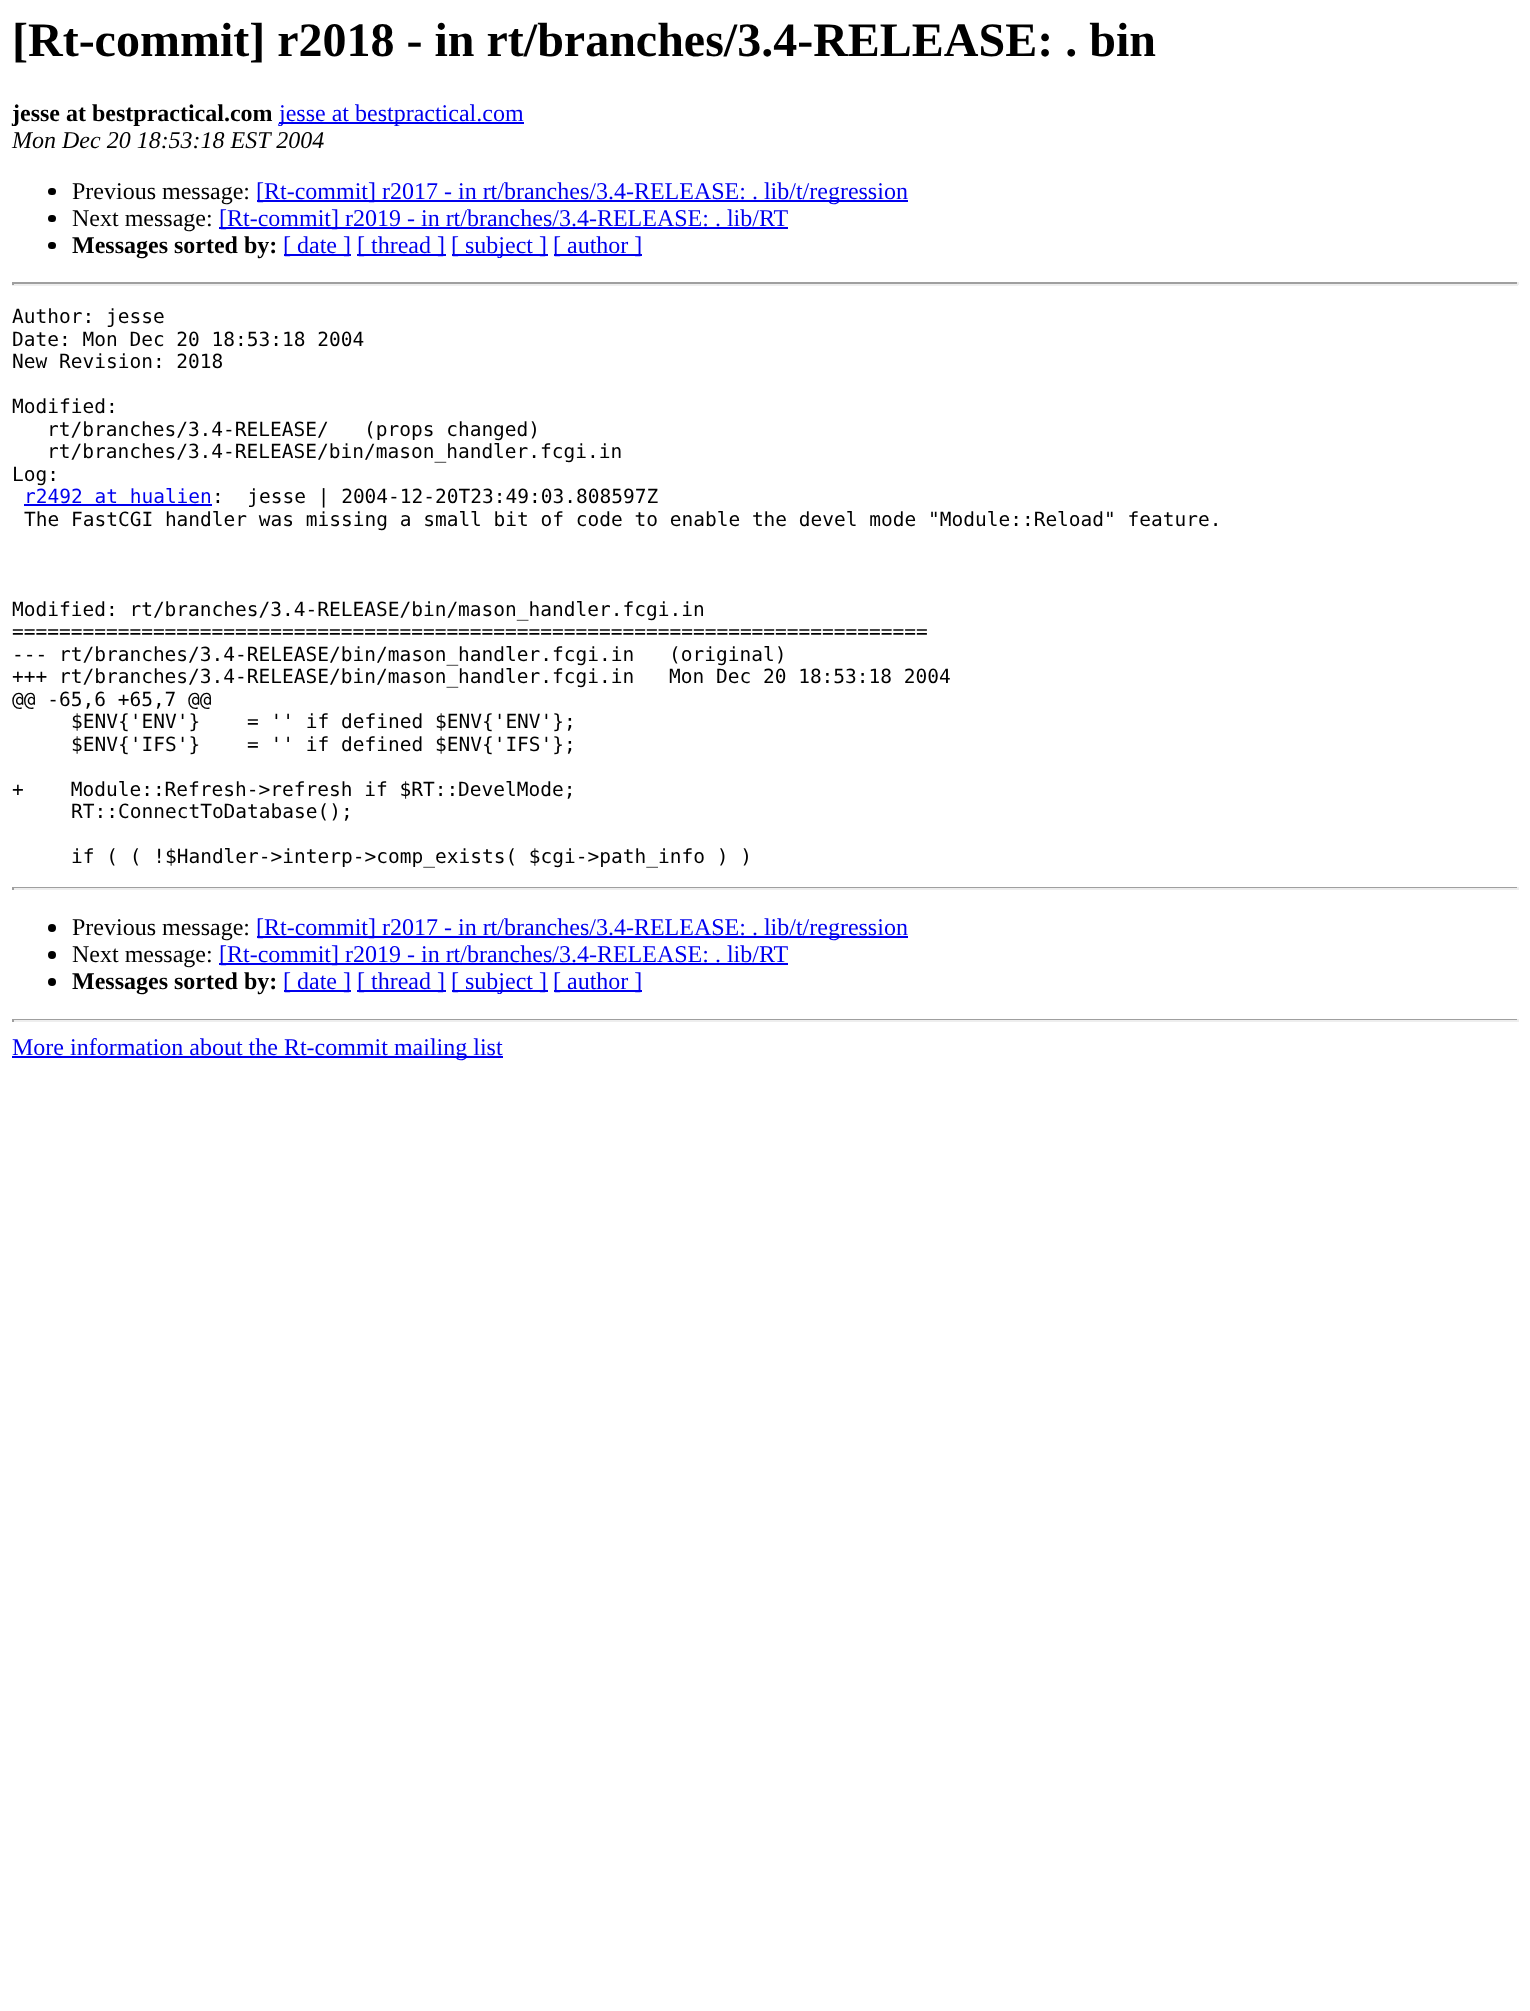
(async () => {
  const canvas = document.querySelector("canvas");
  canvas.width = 1530;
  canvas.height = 2011;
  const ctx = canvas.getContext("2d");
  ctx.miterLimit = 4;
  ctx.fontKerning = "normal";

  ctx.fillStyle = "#ffffff";
  ctx.fillRect(0, 0, 1530, 2011);
  ctx.fillStyle = "#0000ee";
  ctx.fillRect(279, 122, 245, 2);
  ctx.fillStyle = "#000000";
  ctx.beginPath();
  ctx.roundRect(48, 188, 8, 7, 3.5);
  ctx.fill();
  ctx.fillStyle = "#0000ee";
  ctx.fillRect(257, 200, 651, 2);
  ctx.fillStyle = "#000000";
  ctx.beginPath();
  ctx.roundRect(48, 215, 8, 7, 3.5);
  ctx.fill();
  ctx.fillStyle = "#0000ee";
  ctx.fillRect(219, 227, 569, 2);
  ctx.fillStyle = "#000000";
  ctx.beginPath();
  ctx.roundRect(48, 242, 8, 7, 3.5);
  ctx.fill();
  for (const [x, y, w, h, color] of [
    [284, 254, 67, 2, "#0000ee"],
    [357, 254, 89, 2, "#0000ee"],
    [452, 254, 96, 2, "#0000ee"],
    [554, 254, 88, 2, "#0000ee"],
    [12, 282, 1506, 2, "#9f9f9f"],
    [1517, 282, 2, 3, "#eeeeee"],
    [12, 284, 1506, 2, "#eeeeee"],
    [12, 282, 2, 3, "#9f9f9f"],
    [24, 504, 188, 2, "#0000ee"],
    [12, 887, 1506, 1, "#9f9f9f"],
    [1517, 887, 2, 3, "#eeeeee"],
    [12, 888, 1506, 2, "#eeeeee"],
    [12, 887, 2, 3, "#9f9f9f"],
  ]) {
    ctx.fillStyle = color;
    ctx.fillRect(x, y, w, h);
  }
  ctx.fillStyle = "#000000";
  ctx.beginPath();
  ctx.arc(52, 928, 4, 0, Math.PI * 2);
  ctx.fill();
  ctx.fillStyle = "#0000ee";
  ctx.fillRect(257, 936, 651, 2);
  ctx.fillStyle = "#000000";
  ctx.beginPath();
  ctx.arc(52, 955, 4, 0, Math.PI * 2);
  ctx.fill();
  ctx.fillStyle = "#0000ee";
  ctx.fillRect(219, 963, 569, 2);
  ctx.fillStyle = "#000000";
  ctx.beginPath();
  ctx.arc(52, 982, 4, 0, Math.PI * 2);
  ctx.fill();
  for (const [x, y, w, h, color] of [
    [284, 990, 67, 2, "#0000ee"],
    [357, 990, 89, 2, "#0000ee"],
    [452, 990, 96, 2, "#0000ee"],
    [554, 990, 88, 2, "#0000ee"],
    [12, 1019, 1506, 1, "#9f9f9f"],
    [1517, 1019, 2, 3, "#eeeeee"],
    [12, 1020, 1506, 2, "#eeeeee"],
    [12, 1019, 2, 3, "#9f9f9f"],
    [12, 1056, 491, 2, "#0000ee"],
  ]) {
    ctx.fillStyle = color;
    ctx.fillRect(x, y, w, h);
  }
  ctx.font = "bold 48px Liberation Serif";
  ctx.fillStyle = "#000000";
  ctx.fillText("[Rt-commit] r2018 - in rt/branches/3.4-RELEASE: . bin", 12, 56);
  ctx.font = "bold 24px Liberation Serif";
  ctx.fillText("jesse at bestpractical.com", 12, 121);
  ctx.font = "24px Liberation Serif";
  ctx.fillStyle = "#0000ee";
  ctx.fillText("jesse at bestpractical.com", 279, 121);
  ctx.font = "italic 24px Liberation Serif";
  ctx.fillStyle = "#000000";
  ctx.fillText("Mon Dec 20 18:53:18 EST 2004", 12, 148);
  ctx.font = "24px Liberation Serif";
  ctx.fillText("Previous message:", 72, 199);
  ctx.fillStyle = "#0000ee";
  ctx.fillText("[Rt-commit] r2017 - in rt/branches/3.4-RELEASE: . lib/t/regression", 256, 199);
  ctx.fillStyle = "#000000";
  ctx.fillText("Next message:", 72, 226);
  ctx.fillStyle = "#0000ee";
  ctx.fillText("[Rt-commit] r2019 - in rt/branches/3.4-RELEASE: . lib/RT", 219, 226);
  ctx.font = "bold 24px Liberation Serif";
  ctx.fillStyle = "#000000";
  ctx.fillText("Messages sorted by:", 72, 253);
  ctx.font = "24px Liberation Serif";
  ctx.fillStyle = "#0000ee";
  for (const [text, x, y] of [
    ["[ date ]", 283, 253],
    ["[ thread ]", 357, 253],
    ["[ subject ]", 451, 253],
    ["[ author ]", 553, 253],
  ]) {
    ctx.fillText(text, x, y);
  }
  ctx.font = "19.5px DejaVu Sans Mono";
  ctx.fillStyle = "#000000";
  for (const [text, x, y] of [
    ["Author: jesse", 12, 323],
    ["Date: Mon Dec 20 18:53:18 2004", 12, 346],
    ["New Revision: 2018", 12, 368],
    ["Modified:", 12, 413],
    ["rt/branches/3.4-RELEASE/   (props changed)", 47, 436],
    ["rt/branches/3.4-RELEASE/bin/mason_handler.fcgi.in", 47, 458],
    ["Log:", 12, 481],
  ]) {
    ctx.fillText(text, x, y);
  }
  ctx.fillStyle = "#0000ee";
  ctx.fillText("r2492 at hualien", 24, 503);
  ctx.fillStyle = "#000000";
  for (const [text, x, y] of [
    [":  jesse | 2004-12-20T23:49:03.808597Z", 212, 503],
    ["The FastCGI handler was missing a small bit of code to enable the devel mode \"Module::Reload\" feature.", 24, 526],
    ["Modified: rt/branches/3.4-RELEASE/bin/mason_handler.fcgi.in", 12, 616],
    ["==============================================================================", 12, 638],
    ["--- rt/branches/3.4-RELEASE/bin/mason_handler.fcgi.in", 12, 661],
    ["(original)", 669, 661],
    ["+++ rt/branches/3.4-RELEASE/bin/mason_handler.fcgi.in", 12, 683],
    ["Mon Dec 20 18:53:18 2004", 669, 683],
    ["@@ -65,6 +65,7 @@", 12, 706],
    ["$ENV{'ENV'}    = '' if defined $ENV{'ENV'};", 71, 728],
    ["$ENV{'IFS'}    = '' if defined $ENV{'IFS'};", 71, 751],
    ["+    Module::Refresh->refresh if $RT::DevelMode;", 12, 796],
    ["RT::ConnectToDatabase();", 71, 818],
    ["if ( ( !$Handler->interp->comp_exists( $cgi->path_info ) )", 71, 863],
  ]) {
    ctx.fillText(text, x, y);
  }
  ctx.font = "24px Liberation Serif";
  ctx.fillText("Previous message:", 72, 935);
  ctx.fillStyle = "#0000ee";
  ctx.fillText("[Rt-commit] r2017 - in rt/branches/3.4-RELEASE: . lib/t/regression", 256, 935);
  ctx.fillStyle = "#000000";
  ctx.fillText("Next message:", 72, 962);
  ctx.fillStyle = "#0000ee";
  ctx.fillText("[Rt-commit] r2019 - in rt/branches/3.4-RELEASE: . lib/RT", 219, 962);
  ctx.font = "bold 24px Liberation Serif";
  ctx.fillStyle = "#000000";
  ctx.fillText("Messages sorted by:", 72, 989);
  ctx.font = "24px Liberation Serif";
  ctx.fillStyle = "#0000ee";
  for (const [text, x, y] of [
    ["[ date ]", 283, 989],
    ["[ thread ]", 357, 989],
    ["[ subject ]", 451, 989],
    ["[ author ]", 553, 989],
    ["More information about the Rt-commit mailing list", 12, 1055],
  ]) {
    ctx.fillText(text, x, y);
  }
})();
